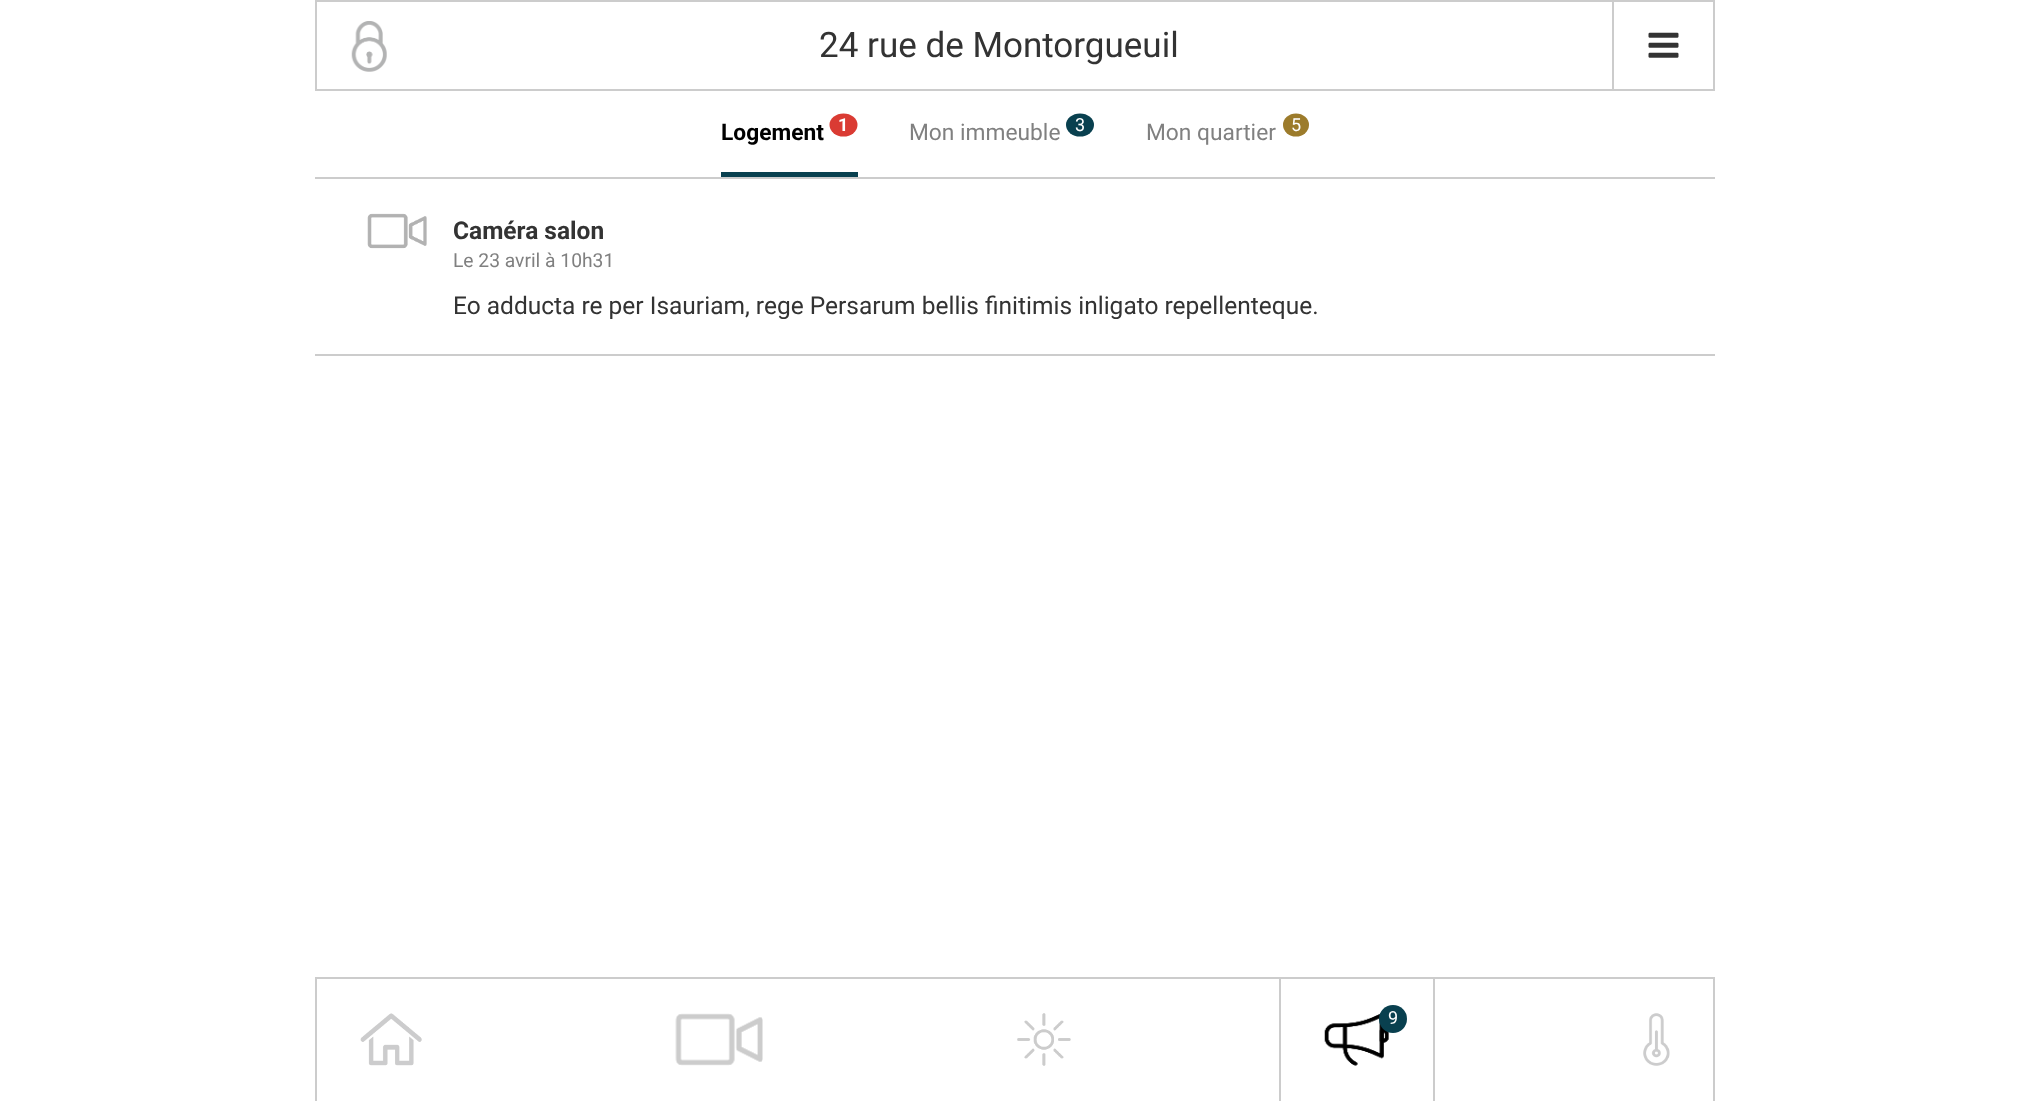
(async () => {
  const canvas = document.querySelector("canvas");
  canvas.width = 2029;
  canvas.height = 1101;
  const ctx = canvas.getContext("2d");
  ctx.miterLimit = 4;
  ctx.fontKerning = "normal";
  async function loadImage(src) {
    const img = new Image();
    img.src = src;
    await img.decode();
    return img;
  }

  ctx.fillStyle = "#ffffff";
  ctx.fillRect(0, 0, 2029, 1101);
  ctx.strokeStyle = "#cccccc";
  ctx.lineWidth = 2;
  ctx.strokeRect(316, 1, 1398, 89);
  ctx.drawImage(await loadImage("img/1.png"), 351, 21, 36, 51);
  ctx.fillStyle = "#cccccc";
  ctx.fillRect(1612, 2, 2, 87);
  ctx.drawImage(await loadImage("img/2.png"), 1648, 32, 31, 26);
  ctx.fillRect(315, 177, 1400, 2);
  ctx.fillStyle = "#08404f";
  ctx.fillRect(721, 172, 137, 5);
  ctx.fillStyle = "#da3b33";
  ctx.beginPath();
  ctx.ellipse(843.5, 125, 14, 11.5, 0, 0, Math.PI * 2);
  ctx.fill();
  ctx.fillStyle = "#09404f";
  ctx.beginPath();
  ctx.ellipse(1080, 125, 14, 11.5, 0, 0, Math.PI * 2);
  ctx.fill();
  ctx.fillStyle = "#9c7b2b";
  ctx.beginPath();
  ctx.ellipse(1296, 125, 13, 11.5, 0, 0, Math.PI * 2);
  ctx.fill();
  ctx.fillStyle = "#cccccc";
  ctx.fillRect(315, 354, 1400, 2);
  ctx.drawImage(await loadImage("img/3.png"), 367, 213, 60, 36);
  ctx.strokeRect(316, 978, 1398, 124);
  ctx.drawImage(await loadImage("img/4.png"), 360, 1013, 62, 53);
  ctx.drawImage(await loadImage("img/5.png"), 675, 1013, 88, 53);
  ctx.drawImage(await loadImage("img/6.png"), 1017, 1013, 54, 53);
  ctx.fillRect(1433, 978, 2, 123);
  ctx.fillRect(1279, 978, 2, 123);
  ctx.drawImage(await loadImage("img/7.png"), 1324, 1013, 65, 53);
  ctx.fillStyle = "#09404f";
  ctx.beginPath();
  ctx.arc(1393, 1019, 14, 0, Math.PI * 2);
  ctx.fill();
  ctx.drawImage(await loadImage("img/8.png"), 1643, 1013, 27, 53);
  ctx.font = "35px Roboto";
  ctx.fillStyle = "#333333";
  ctx.fillText("24 rue de Montorgueuil", 819, 57);
  ctx.font = "bold 22.75px Roboto";
  ctx.fillStyle = "#000000";
  ctx.fillText("Logement", 721, 140);
  ctx.font = "bold 18px Roboto";
  ctx.fillStyle = "#ffffff";
  ctx.fillText("1", 838, 131);
  ctx.font = "22.75px Roboto";
  ctx.fillStyle = "#808080";
  ctx.fillText("Mon immeuble", 909, 140);
  ctx.font = "18px Roboto";
  ctx.fillStyle = "#ffffff";
  ctx.fillText("3", 1075, 131);
  ctx.font = "22.75px Roboto";
  ctx.fillStyle = "#808080";
  ctx.fillText("Mon quartier", 1146, 140);
  ctx.font = "18px Roboto";
  ctx.fillStyle = "#ffffff";
  ctx.fillText("5", 1291, 131);
  ctx.font = "bold 24.5px Roboto";
  ctx.fillStyle = "#333333";
  ctx.fillText("Caméra salon", 453, 239);
  ctx.font = "19.25px Roboto";
  ctx.fillStyle = "#808080";
  ctx.fillText("Le 23 avril à 10h31", 453, 267);
  ctx.font = "24.5px Roboto";
  ctx.fillStyle = "#333333";
  ctx.fillText("Eo adducta re per Isauriam, rege Persarum bellis finitimis inligato repellenteque.", 453, 314);
  ctx.font = "18px Roboto";
  ctx.fillStyle = "#ffffff";
  ctx.fillText("9", 1388, 1024);
})();
